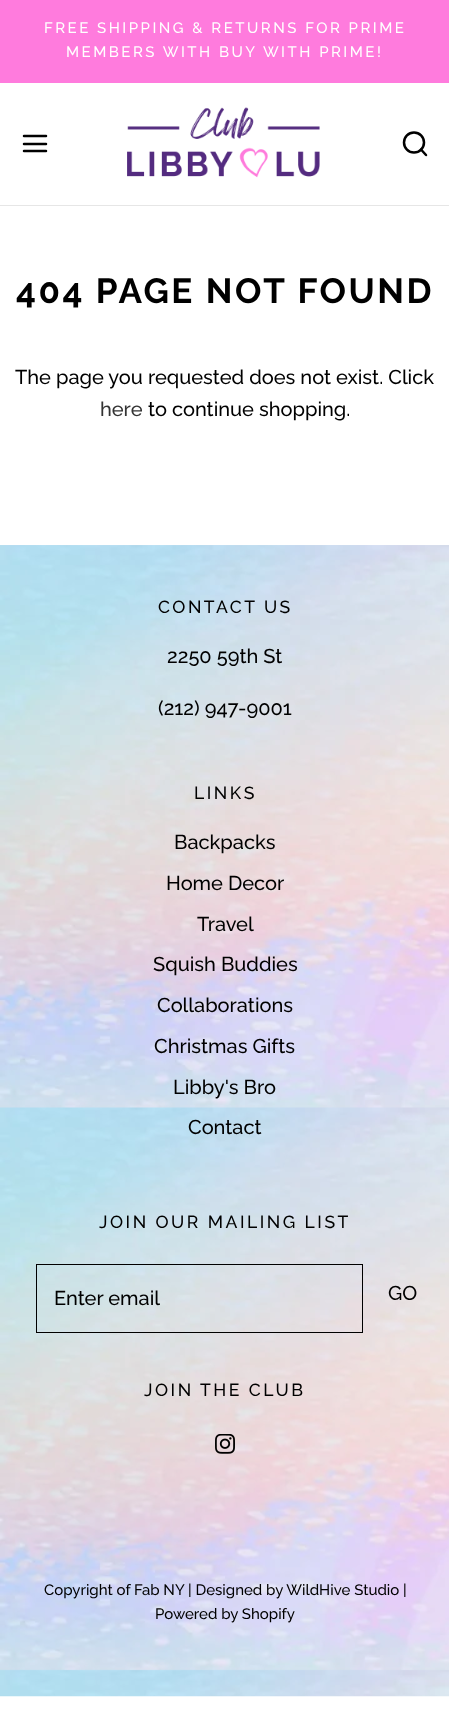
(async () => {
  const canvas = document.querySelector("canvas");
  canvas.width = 449;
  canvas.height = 1724;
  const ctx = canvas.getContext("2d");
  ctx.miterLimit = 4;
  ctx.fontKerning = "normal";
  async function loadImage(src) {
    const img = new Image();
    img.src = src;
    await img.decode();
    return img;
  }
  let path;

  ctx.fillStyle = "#ffffff";
  ctx.fillRect(0, 0, 449, 1724);
  ctx.fillStyle = "#ff7bdd";
  ctx.fillRect(0, 0, 449, 83);
  ctx.fillStyle = "#e6e6e6";
  ctx.fillRect(0, 205, 449, 1);
  path = new Path2D("M24 144H46M24 136H46M24 151H46");
  ctx.strokeStyle = "#000000";
  ctx.lineWidth = 2.5;
  ctx.lineCap = "round";
  ctx.lineJoin = "round";
  ctx.stroke(path);
  ctx.drawImage(await loadImage("img/1.png"), 127, 107, 193, 71);
  ctx.beginPath();
  ctx.arc(414, 142.5, 10, 0, Math.PI * 2);
  ctx.stroke();
  path = new Path2D("M426 155L421 149.5");
  ctx.stroke(path);
  ctx.drawImage(await loadImage("img/2.png"), 0, 545, 449, 1152);
  ctx.lineWidth = 1;
  ctx.lineJoin = "miter";
  ctx.strokeRect(36.5, 1264.5, 326, 68);
  ctx.drawImage(await loadImage("img/3.png"), 215, 1434, 20, 20);
  ctx.letterSpacing = "2.5px";
  ctx.font = "500 15px Raleway";
  ctx.fillStyle = "#ffffff";
  ctx.fillText("FREE SHIPPING & RETURNS FOR PRIME", 44, 33);
  ctx.fillText("MEMBERS WITH BUY WITH PRIME!", 66, 57);
  ctx.font = "bold 35px Raleway";
  ctx.fillStyle = "#000000";
  ctx.fillText("404 PAGE NOT FOUND", 16, 303);
  ctx.letterSpacing = "0px";
  ctx.font = "500 20px Raleway";
  ctx.fillText("The page you requested does not exist. Click", 15, 384);
  ctx.fillStyle = "#333333";
  ctx.fillText("here", 100, 416);
  ctx.fillStyle = "#000000";
  ctx.fillText("to continue shopping.", 148, 416);
  ctx.letterSpacing = "2.5px";
  ctx.font = "500 17.5px Raleway";
  ctx.fillText("CONTACT US", 158, 613);
  ctx.letterSpacing = "0px";
  ctx.font = "500 20px Raleway";
  ctx.fillText("2250 59th St", 167, 663);
  ctx.fillText("(212) 947-9001", 158, 715);
  ctx.letterSpacing = "2.5px";
  ctx.font = "500 17.5px Raleway";
  ctx.fillText("LINKS", 194, 799);
  ctx.letterSpacing = "0px";
  ctx.font = "500 20px Raleway";
  for (const [text, x, y] of [
    ["Backpacks", 174, 849],
    ["Home Decor", 166, 890],
    ["Travel", 197, 931],
    ["Squish Buddies", 153, 971],
    ["Collaborations", 157, 1012],
    ["Christmas Gifts", 154, 1053],
    ["Libby's Bro", 173, 1094],
    ["Contact", 188, 1134],
  ]) {
    ctx.fillText(text, x, y);
  }
  ctx.letterSpacing = "2.5px";
  ctx.font = "500 17.5px Raleway";
  ctx.fillText("JOIN OUR MAILING LIST", 99, 1228);
  ctx.letterSpacing = "0px";
  ctx.font = "500 20px Raleway";
  ctx.fillText("Enter email", 54, 1305);
  ctx.fillText("GO", 388, 1300);
  ctx.letterSpacing = "2.5px";
  ctx.font = "500 17.5px Raleway";
  ctx.fillText("JOIN THE CLUB", 144, 1396);
  ctx.letterSpacing = "0px";
  ctx.font = "500 15px Raleway";
  for (const [text, x, y] of [
    ["Copyright of Fab NY", 44, 1595],
    ["| Designed by WildHive Studio |", 188, 1595],
    ["Powered by Shopify", 155, 1619],
  ]) {
    ctx.fillText(text, x, y);
  }
})();
